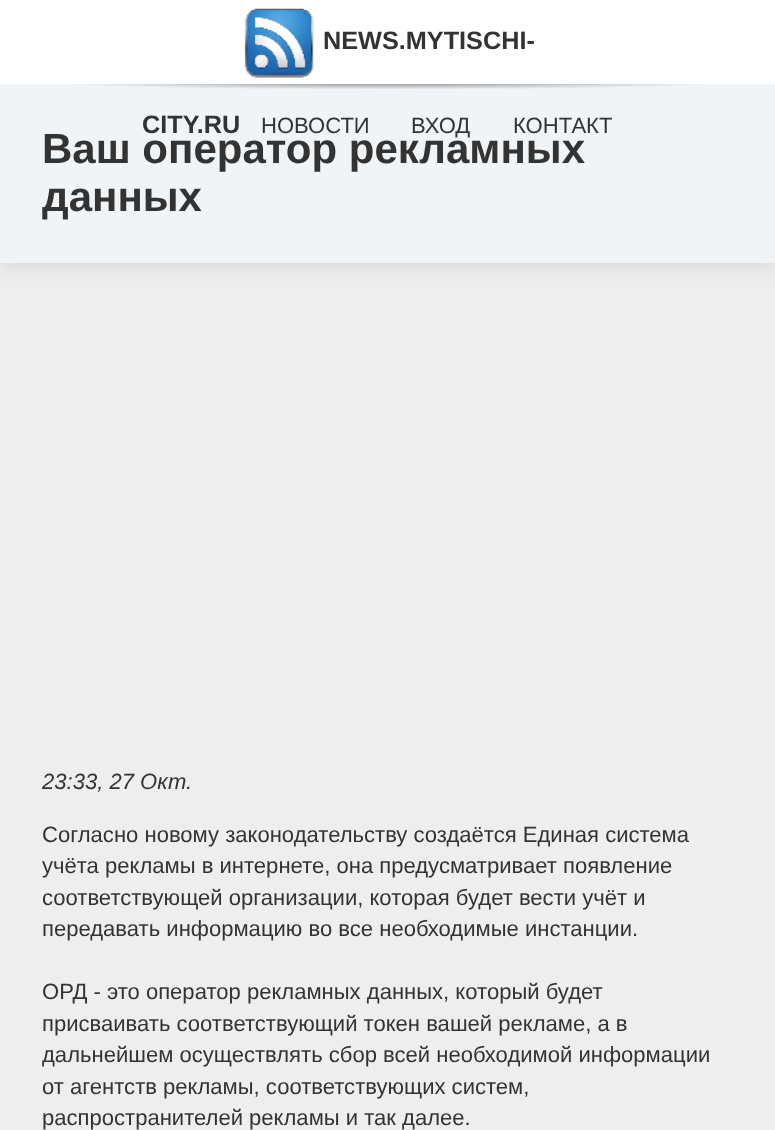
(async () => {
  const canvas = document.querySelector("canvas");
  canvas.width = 775;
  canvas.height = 1130;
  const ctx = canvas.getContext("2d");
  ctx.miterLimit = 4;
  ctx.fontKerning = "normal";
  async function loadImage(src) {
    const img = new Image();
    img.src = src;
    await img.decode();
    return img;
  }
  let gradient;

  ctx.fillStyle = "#eeeeee";
  ctx.fillRect(0, 0, 775, 1130);
  ctx.fillStyle = "#cccccc";
  ctx.filter = "blur(10px)";
  ctx.beginPath();
  ctx.rect(0, 84, 775, 179);
  ctx.fill();
  ctx.filter = "none";
  ctx.fillStyle = "#ffffff";
  ctx.fillRect(0, 0, 775, 84);
  ctx.drawImage(await loadImage("img/1.png"), 244, 8, 70, 70);
  gradient = ctx.createRadialGradient(388, 4201.08, 0, 388, 4201.08, 658);
  gradient.addColorStop(0, "#909294");
  gradient.addColorStop(0.25, "#c0c3c6");
  gradient.addColorStop(0.5, "#f0f4f7");
  ctx.fillStyle = gradient;
  ctx.beginPath();
  ctx.rect(0, 84, 775, 9);
  ctx.save();
  ctx.clip();
  ctx.scale(1, 13 / 658);
  ctx.fillRect(0, 0, 775, 57196);
  ctx.restore();
  ctx.fillStyle = "#f0f4f7";
  ctx.fillRect(0, 93, 775, 170);
  ctx.font = "bold 25.25px Liberation Sans";
  ctx.fillStyle = "#333333";
  ctx.fillText("NEWS.MYTISCHI-", 323, 49);
  ctx.fillText("CITY.RU", 142, 133);
  ctx.font = "22.05px Liberation Sans";
  for (const [text, x, y] of [
    ["НОВОСТИ", 261, 133],
    ["ВХОД", 411, 133],
    ["КОНТАКТ", 513, 133],
  ]) {
    ctx.fillText(text, x, y);
  }
  ctx.font = "bold 42px Liberation Sans";
  ctx.fillText("Ваш оператор рекламных", 42, 163);
  ctx.fillText("данных", 42, 211);
  ctx.font = "italic 22.05px Liberation Sans";
  ctx.fillText("23:33, 27 Окт.", 42, 789);
  ctx.font = "22.05px Liberation Sans";
  for (const [text, x, y] of [
    ["Согласно новому законодательству создаётся Единая система", 42, 842],
    ["учёта рекламы в интернете, она предусматривает появление", 42, 873],
    ["соответствующей организации, которая будет вести учёт и", 42, 905],
    ["передавать информацию во все необходимые инстанции.", 42, 936],
    ["ОРД - это оператор рекламных данных, который будет", 42, 999],
    ["присваивать соответствующий токен вашей рекламе, а в", 42, 1031],
    ["дальнейшем осуществлять сбор всей необходимой информации", 42, 1062],
    ["от агентств рекламы, соответствующих систем,", 42, 1094],
    ["распространителей рекламы и так далее.", 42, 1125],
  ]) {
    ctx.fillText(text, x, y);
  }
})();
